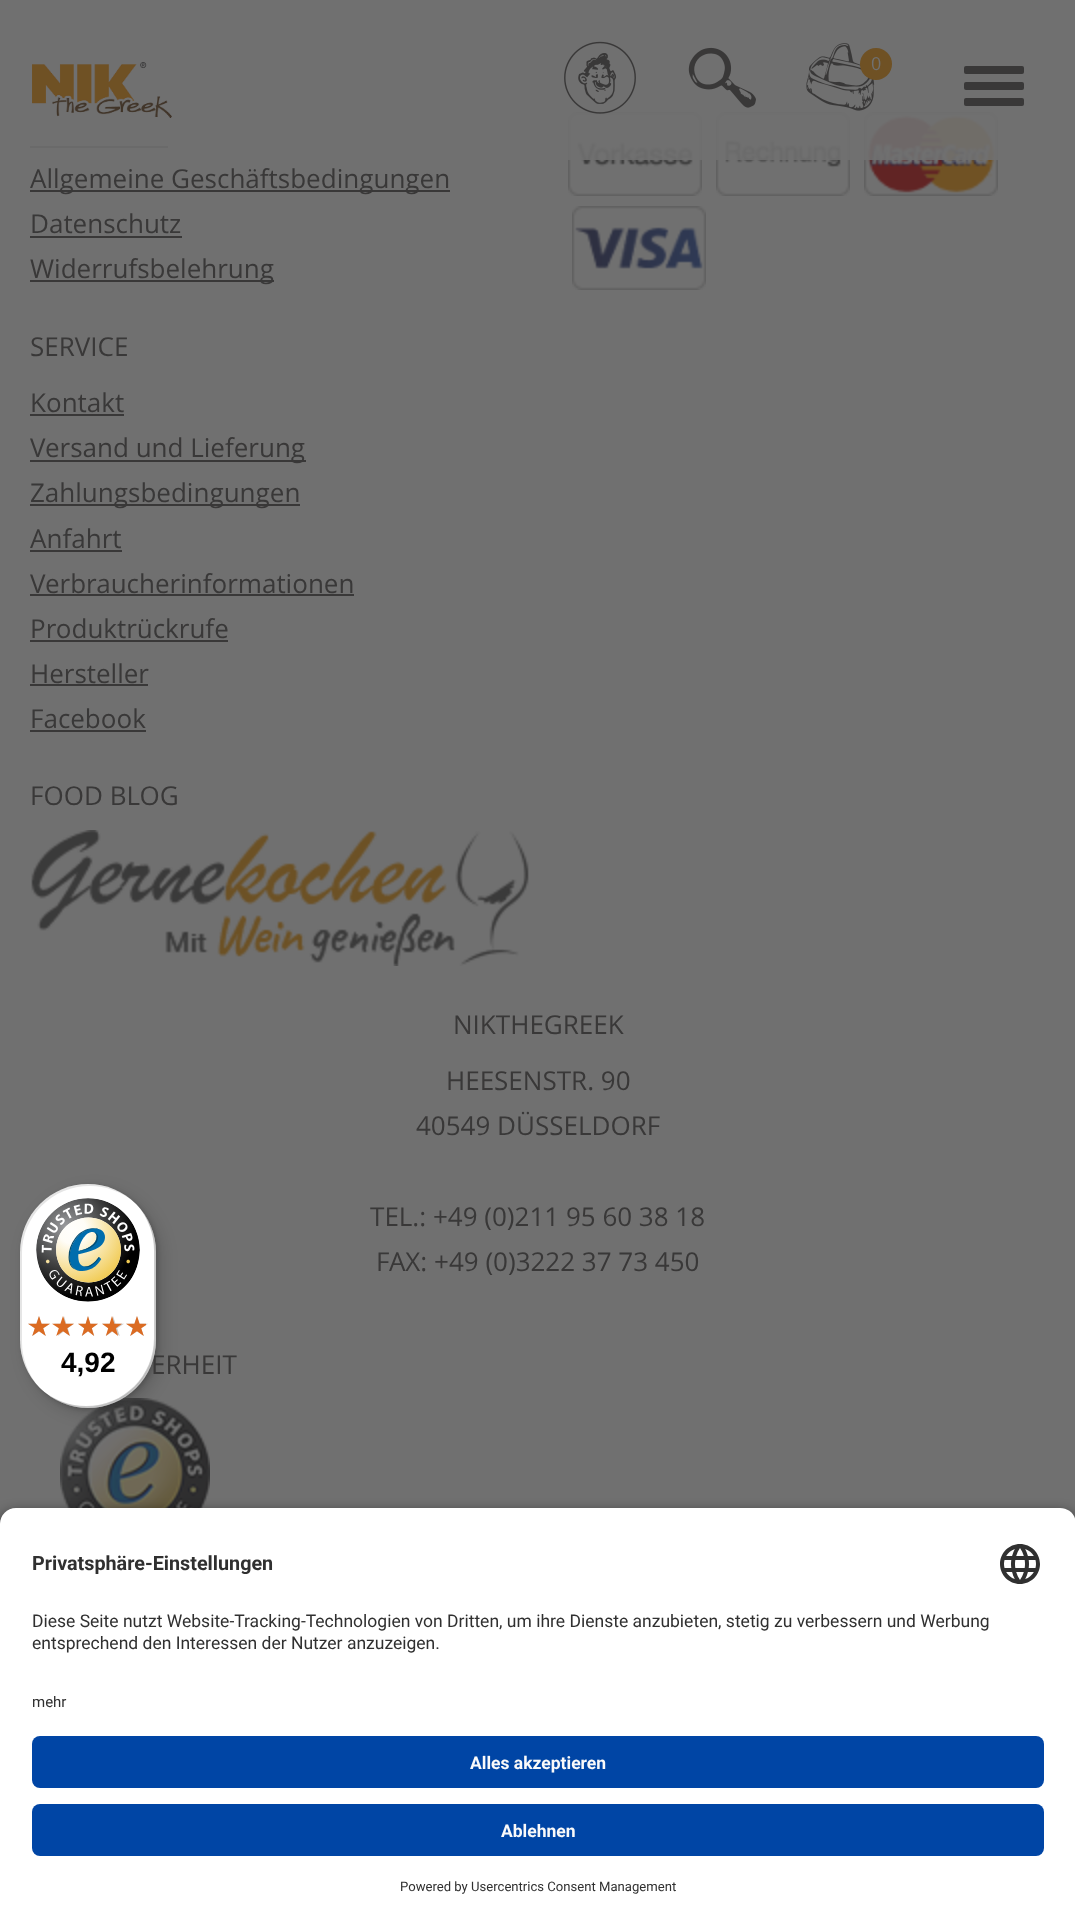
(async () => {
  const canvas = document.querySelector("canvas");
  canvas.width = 1075;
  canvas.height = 1928;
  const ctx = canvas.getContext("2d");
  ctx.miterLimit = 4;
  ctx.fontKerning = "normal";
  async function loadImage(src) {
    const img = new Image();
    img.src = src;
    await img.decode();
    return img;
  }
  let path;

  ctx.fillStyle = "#707070";
  ctx.fillRect(0, 0, 1075, 1928);
  ctx.fillStyle = "#393838";
  ctx.fillRect(30, 146, 138, 2);
  ctx.drawImage(await loadImage("img/5.png"), 568, 112, 134, 84);
  ctx.drawImage(await loadImage("img/6.png"), 716, 112, 134, 84);
  ctx.drawImage(await loadImage("img/7.png"), 864, 112, 134, 84);
  ctx.fillStyle = "rgba(112, 112, 112, 0.9)";
  ctx.fillRect(30, 112, 968, 48);
  ctx.drawImage(await loadImage("img/1.png"), 32, 62, 140, 56);
  ctx.drawImage(await loadImage("img/2.png"), 564, 41, 72, 73);
  ctx.drawImage(await loadImage("img/3.png"), 688, 47, 68, 61);
  ctx.drawImage(await loadImage("img/4.png"), 806, 43, 69, 68);
  ctx.fillStyle = "#6f5124";
  ctx.beginPath();
  ctx.arc(876, 64, 16, 0, Math.PI * 2);
  ctx.fill();
  ctx.fillStyle = "#393838";
  ctx.beginPath();
  ctx.roundRect(964, 66, 60, 8, 2);
  ctx.fill();
  ctx.beginPath();
  ctx.roundRect(964, 82, 60, 8, 2);
  ctx.fill();
  ctx.beginPath();
  ctx.roundRect(964, 98, 60, 8, 2);
  ctx.fill();
  for (const [x, y, w, h, color] of [
    [30, 190, 420, 2, "#393838"],
    [30, 236, 152, 2, "#393838"],
    [30, 280, 244, 2, "#393838"],
    [30, 414, 94, 2, "#393838"],
    [30, 460, 276, 2, "#393838"],
    [30, 504, 270, 2, "#393838"],
    [30, 550, 92, 2, "#393838"],
    [30, 594, 324, 2, "#393838"],
    [30, 640, 198, 2, "#393838"],
    [30, 684, 118, 2, "#393838"],
    [30, 730, 116, 2, "#393838"],
  ]) {
    ctx.fillStyle = color;
    ctx.fillRect(x, y, w, h);
  }
  ctx.drawImage(await loadImage("img/8.png"), 572, 206, 134, 84);
  ctx.drawImage(await loadImage("img/9.png"), 31, 830, 498, 136);
  ctx.drawImage(await loadImage("img/10.png"), 60, 1398, 150, 110);
  ctx.fillStyle = "rgba(0, 0, 0, 0.15)";
  ctx.filter = "blur(8px)";
  ctx.beginPath();
  ctx.roundRect(26, 1190, 136, 224, 68);
  ctx.fill();
  ctx.filter = "none";
  ctx.filter = "blur(2px)";
  ctx.beginPath();
  ctx.roundRect(22, 1186, 136, 224, 68);
  ctx.fill();
  ctx.filter = "none";
  ctx.fillStyle = "rgba(0, 0, 0, 0.8)";
  ctx.filter = "blur(7px)";
  ctx.beginPath();
  ctx.roundRect(0, 1514, 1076, 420, 16);
  ctx.fill();
  ctx.filter = "none";
  ctx.fillStyle = "#ffffff";
  ctx.fillRect(0, 1696, 1075, 232);
  ctx.fillStyle = "#0045a5";
  ctx.beginPath();
  ctx.roundRect(32, 1736, 1012, 52, 8);
  ctx.fill();
  ctx.beginPath();
  ctx.roundRect(32, 1804, 1012, 52, 8);
  ctx.fill();
  ctx.font = "18px Open Sans";
  ctx.fillStyle = "#707070";
  ctx.fillText("0", 871, 70);
  ctx.font = "26px Open Sans";
  ctx.fillStyle = "#393838";
  for (const [text, x, y] of [
    ["Allgemeine Geschäftsbedingungen", 30, 188],
    ["Datenschutz", 30, 233],
    ["Widerrufsbelehrung", 30, 278],
    ["SERVICE", 30, 356],
    ["Kontakt", 30, 412],
    ["Versand und Lieferung", 30, 457],
    ["Zahlungsbedingungen", 30, 502],
    ["Anfahrt", 30, 548],
    ["Verbraucherinformationen", 30, 593],
    ["Produktrückrufe", 30, 638],
    ["Hersteller", 30, 683],
    ["Facebook", 30, 728],
    ["FOOD BLOG", 30, 805],
    ["NIKTHEGREEK", 453, 1034],
    ["HEESENSTR. 90", 446, 1090],
    ["40549 DÜSSELDORF", 416, 1135],
    ["TEL.: +49 (0)211 95 60 38 18", 370, 1226],
    ["FAX: +49 (0)3222 37 73 450", 376, 1271],
    ["ERHEIT", 151, 1374],
  ]) {
    ctx.fillText(text, x, y);
  }
  ctx.fillStyle = "#ffffff";
  ctx.beginPath();
  ctx.roundRect(20, 1184, 136, 224, 68);
  ctx.fill();
  ctx.fillStyle = "rgba(0, 0, 0, 0.1)";
  path = new Path2D("M90 1186C106 1186 121 1192 133 1201C121 1190 105 1184 88 1184C50 1184 20 1214 20 1252V1340C20 1357 26 1373 37 1385C28 1373 22 1358 22 1342V1254C22 1216 52 1186 90 1186Z");
  ctx.fill(path);
  ctx.fillStyle = "rgba(0, 0, 0, 0.2)";
  path = new Path2D("M43 1391C55 1402 71 1408 88 1408C126 1408 156 1378 156 1340V1252C156 1235 150 1219 139 1207C148 1219 154 1234 154 1250V1338C154 1376 124 1406 86 1406C70 1406 55 1400 43 1391Z");
  ctx.fill(path);
  ctx.fillStyle = "rgba(50, 50, 50, 0.2)";
  path = new Path2D("M38 1387C51 1400 68 1408 88 1408C126 1408 156 1378 156 1340V1252C156 1232 148 1215 135 1202C147 1215 155 1232 155 1251V1339C155 1376 124 1407 87 1407C68 1407 51 1399 38 1387Z");
  ctx.fill(path);
  ctx.fillStyle = "rgba(255, 255, 255, 0.3)";
  path = new Path2D("M47 1394C59 1403 73 1408 88 1408C126 1408 156 1378 156 1340V1252C156 1237 151 1223 142 1211C150 1222 155 1236 155 1251V1339C155 1377 125 1407 87 1407C72 1407 58 1402 47 1394Z");
  ctx.fill(path);
  ctx.drawImage(await loadImage("img/11.png"), 36, 1198, 104, 104);
  ctx.drawImage(await loadImage("img/12.png"), 28, 1316, 22, 20);
  ctx.drawImage(await loadImage("img/13.png"), 54, 1316, 20, 20);
  ctx.drawImage(await loadImage("img/14.png"), 78, 1316, 20, 20);
  ctx.drawImage(await loadImage("img/15.png"), 102, 1316, 22, 20);
  ctx.drawImage(await loadImage("img/15.png"), 126, 1316, 22, 20);
  ctx.drawImage(await loadImage("img/16.png"), 28, 1316, 22, 20);
  ctx.drawImage(await loadImage("img/17.png"), 52, 1316, 22, 20);
  ctx.drawImage(await loadImage("img/18.png"), 78, 1316, 20, 20);
  ctx.drawImage(await loadImage("img/19.png"), 102, 1316, 20, 20);
  ctx.drawImage(await loadImage("img/20.png"), 126, 1316, 20, 20);
  ctx.font = "bold 28px Liberation Sans";
  ctx.fillStyle = "#000000";
  ctx.fillText("4,92", 61, 1372);
  ctx.font = "15px Roboto";
  ctx.fillStyle = "#303030";
  ctx.fillText("mehr", 32, 1707);
  ctx.fillStyle = "#ffffff";
  path = new Path2D("M16 1508H1060C1069 1508 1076 1515 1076 1524V1696H0V1524C0 1515 7 1508 16 1508Z");
  ctx.fill(path);
  ctx.drawImage(await loadImage("img/21.png"), 1000, 1544, 40, 40);
  ctx.font = "bold 19.75px Roboto";
  ctx.fillStyle = "#303030";
  ctx.fillText("Privatsphäre-Einstellungen", 32, 1570);
  ctx.font = "17.5px Roboto";
  ctx.fillText("entsprechend den Interessen der Nutzer anzuzeigen.", 32, 1649);
  ctx.fillText("Diese Seite nutzt Website-Tracking-Technologien von Dritten, um ihre Dienste anzubieten, stetig zu verbessern und Werbung", 32, 1627);
  ctx.font = "bold 17.5px Roboto";
  ctx.fillStyle = "#fafafa";
  ctx.fillText("Alles akzeptieren", 470, 1769);
  ctx.fillText("Ablehnen", 501, 1837);
  ctx.font = "13.1px Roboto";
  ctx.fillStyle = "#303030";
  ctx.fillText("Powered by Usercentrics Consent Management", 400, 1891);
})();
